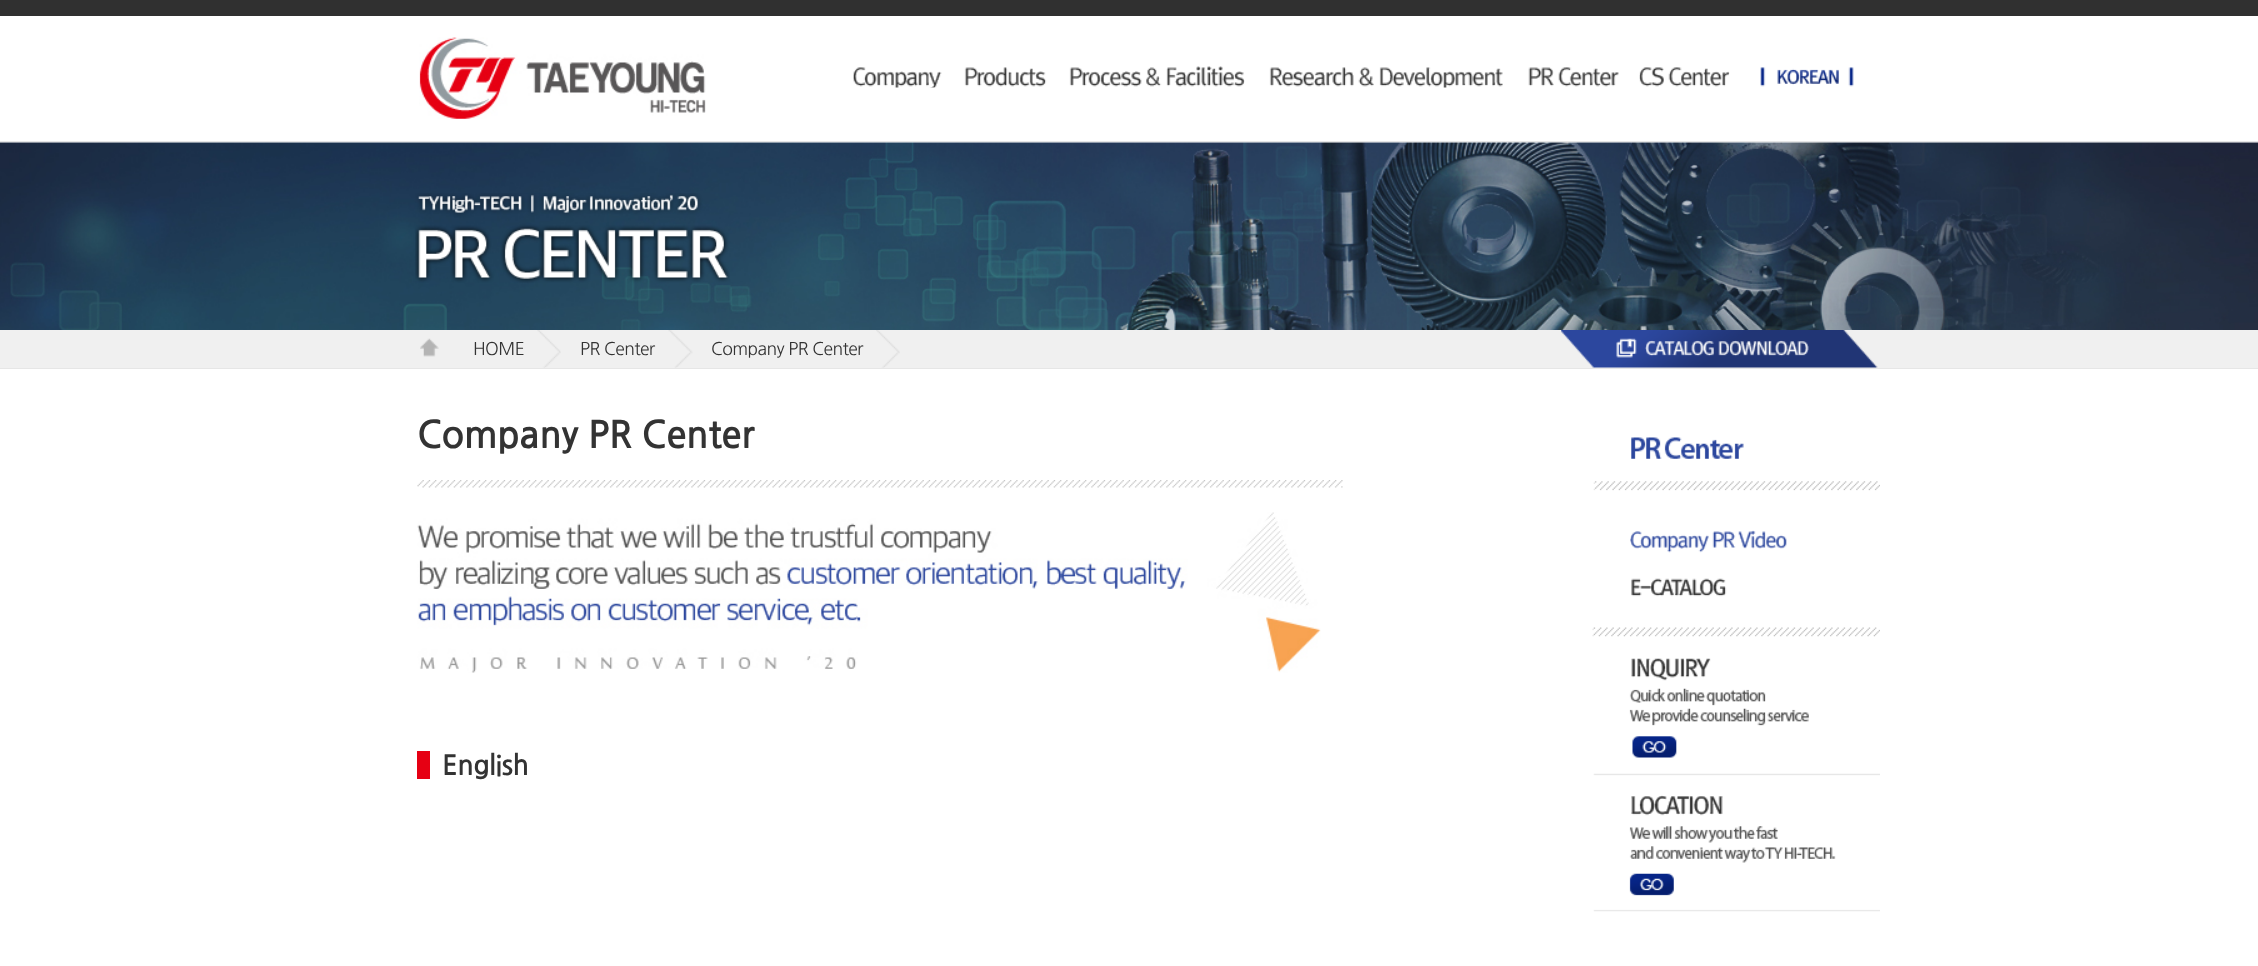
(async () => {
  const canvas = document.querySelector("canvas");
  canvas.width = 2258;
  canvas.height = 966;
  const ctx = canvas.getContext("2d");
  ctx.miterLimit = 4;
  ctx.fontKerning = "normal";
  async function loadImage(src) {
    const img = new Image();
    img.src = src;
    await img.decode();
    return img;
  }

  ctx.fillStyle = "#ffffff";
  ctx.fillRect(0, 0, 2258, 966);
  ctx.fillStyle = "#303030";
  ctx.fillRect(0, 0, 2258, 16);
  ctx.fillStyle = "#e6e6e6";
  ctx.fillRect(0, 141, 2258, 1);
  ctx.drawImage(await loadImage("img/1.png"), 419, 37, 287, 82);
  ctx.drawImage(await loadImage("img/2.png"), 853, 67, 89, 21);
  ctx.drawImage(await loadImage("img/3.png"), 964, 67, 83, 20);
  ctx.drawImage(await loadImage("img/4.png"), 1069, 66, 176, 21);
  ctx.drawImage(await loadImage("img/5.png"), 1269, 67, 234, 21);
  ctx.drawImage(await loadImage("img/6.png"), 1528, 67, 91, 20);
  ctx.drawImage(await loadImage("img/7.png"), 1639, 67, 91, 20);
  ctx.drawImage(await loadImage("img/8.png"), 1760, 67, 94, 20);
  ctx.drawImage(await loadImage("img/9.png"), 0, 142, 2258, 188);
  ctx.drawImage(await loadImage("img/10.png"), 415, 193, 315, 90);
  ctx.fillStyle = "#f0f0f0";
  ctx.fillRect(0, 330, 2258, 38);
  ctx.fillStyle = "#e6e6e6";
  ctx.fillRect(0, 368, 2258, 1);
  ctx.drawImage(await loadImage("img/11.png"), 420, 338, 19, 19);
  ctx.drawImage(await loadImage("img/12.png"), 537, 330, 24, 38);
  ctx.drawImage(await loadImage("img/13.png"), 668, 330, 25, 38);
  ctx.drawImage(await loadImage("img/14.png"), 876, 330, 24, 38);
  ctx.drawImage(await loadImage("img/15.png"), 1561, 330, 317, 38);
  ctx.drawImage(await loadImage("img/16.png"), 417, 480, 926, 8);
  ctx.drawImage(await loadImage("img/17.png"), 417, 512, 904, 161);
  ctx.fillStyle = "#e60013";
  ctx.fillRect(417, 751, 13, 28);
  ctx.drawImage(await loadImage("img/18.png"), 1593, 437, 287, 54);
  ctx.drawImage(await loadImage("img/19.png"), 1592, 627, 288, 10);
  ctx.drawImage(await loadImage("img/20.png"), 1630, 530, 157, 23);
  ctx.drawImage(await loadImage("img/21.png"), 1631, 578, 96, 19);
  ctx.drawImage(await loadImage("img/22.png"), 1629, 658, 180, 100);
  ctx.drawImage(await loadImage("img/23.png"), 1593, 773, 287, 139);
  ctx.letterSpacing = "-0.6px";
  ctx.font = "17.5px NanumGothic";
  ctx.fillStyle = "#333333";
  for (const [text, x, y] of [
    ["HOME", 473, 355],
    ["PR Center", 580, 355],
    ["Company PR Center", 711, 355],
  ]) {
    ctx.fillText(text, x, y);
  }
  ctx.font = "bold 37.5px NanumGothic";
  ctx.fillText("Company PR Center", 417, 448);
  ctx.font = "bold 27.5px NanumGothic";
  ctx.fillText("English", 442, 775);
})();
